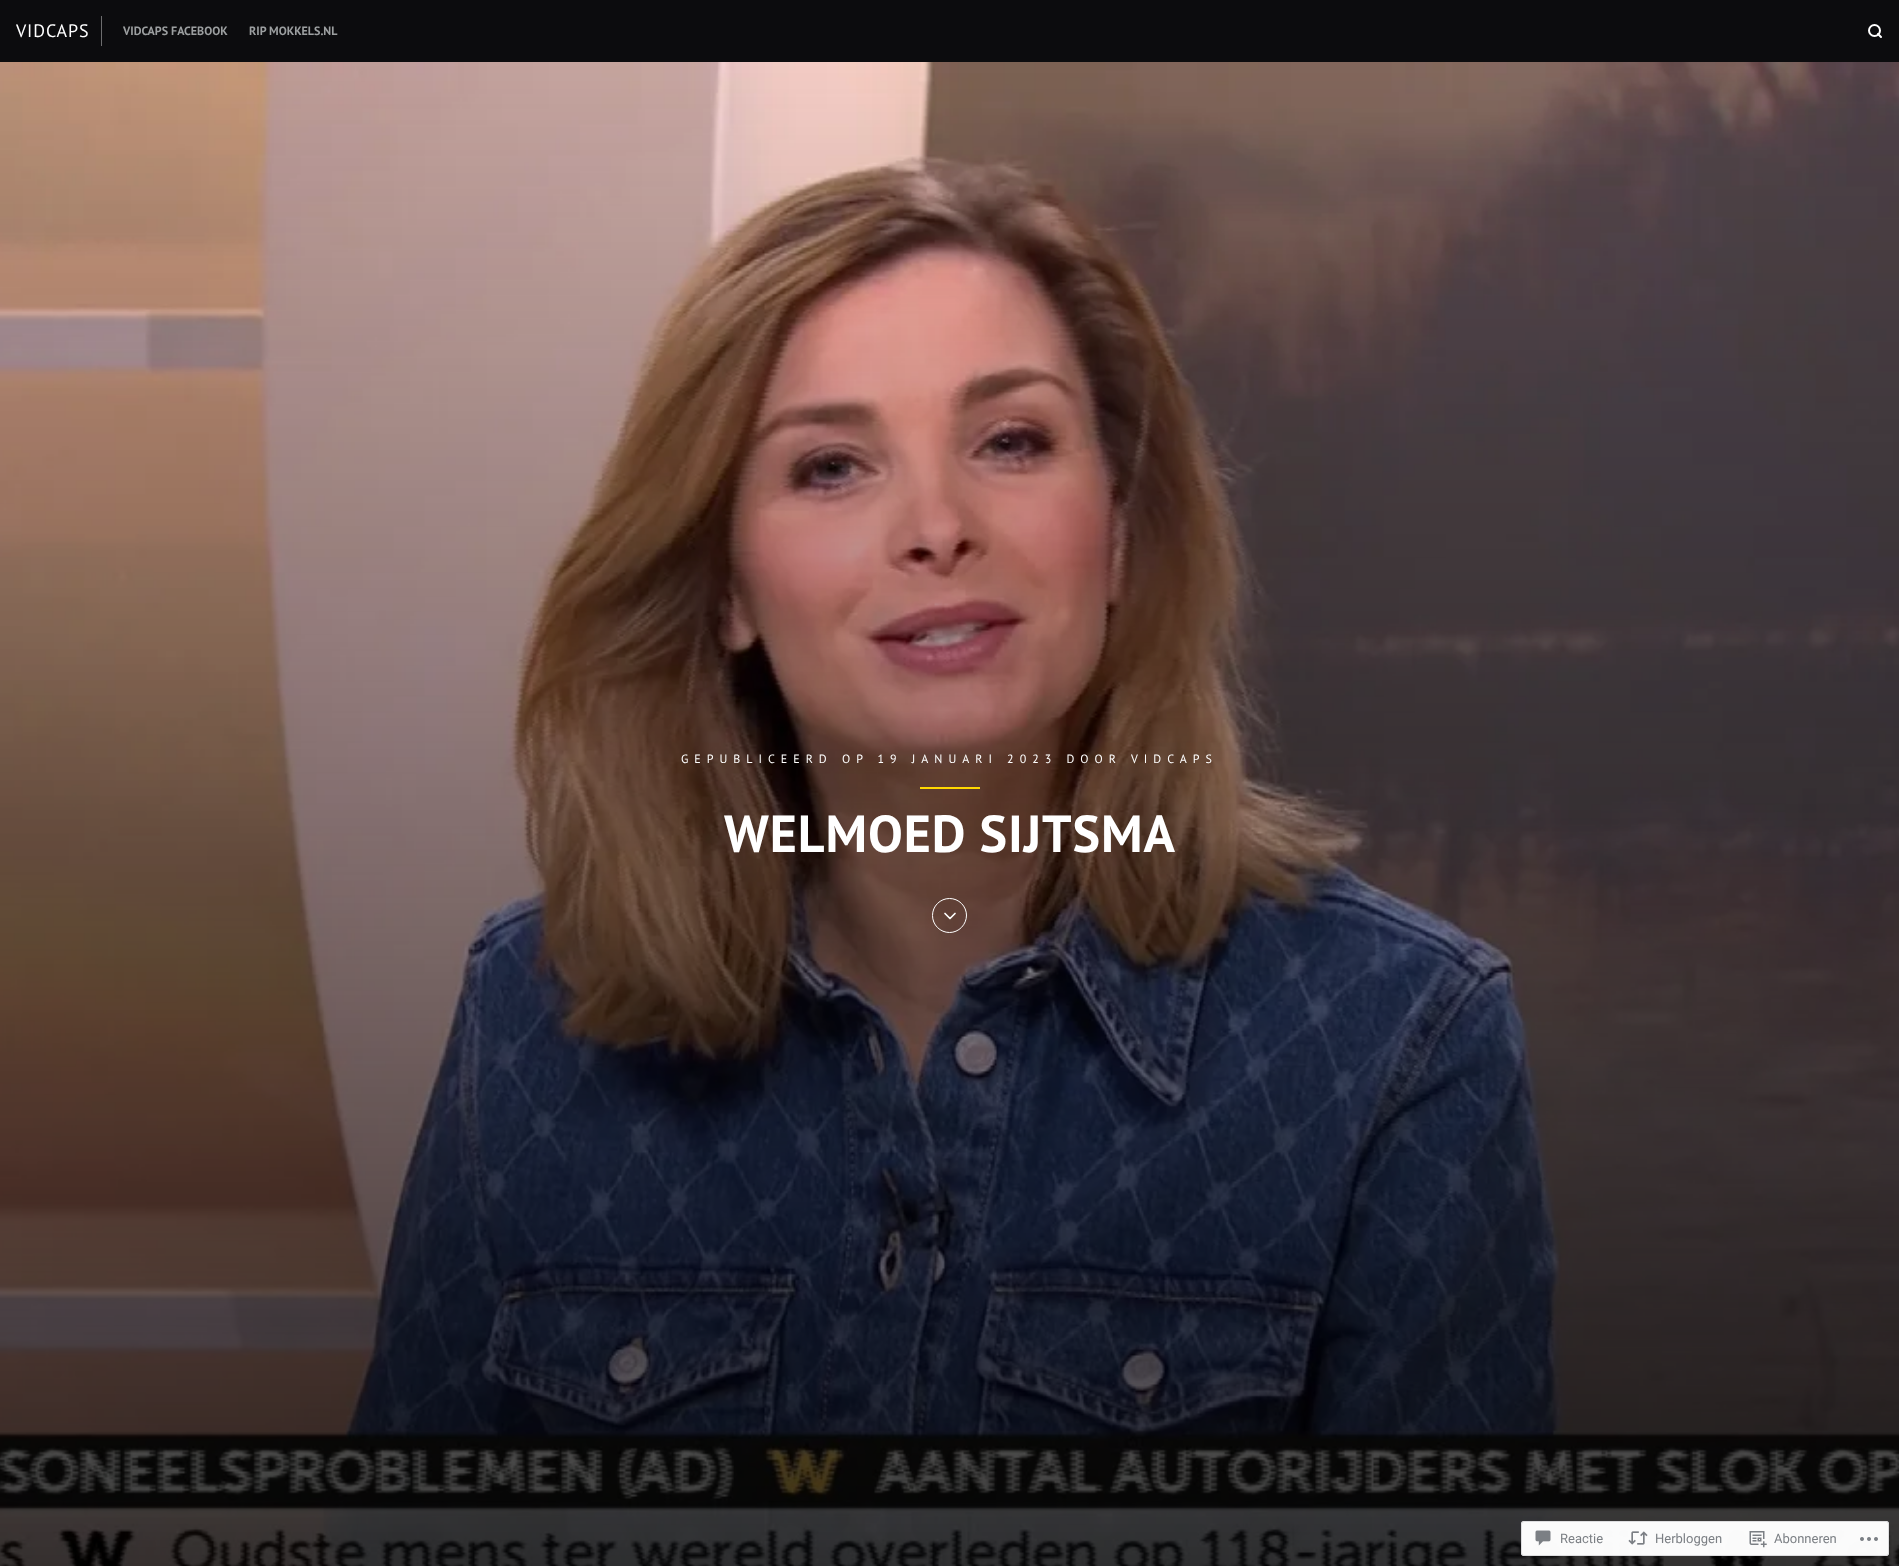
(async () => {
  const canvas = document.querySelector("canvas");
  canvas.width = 1899;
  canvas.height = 1566;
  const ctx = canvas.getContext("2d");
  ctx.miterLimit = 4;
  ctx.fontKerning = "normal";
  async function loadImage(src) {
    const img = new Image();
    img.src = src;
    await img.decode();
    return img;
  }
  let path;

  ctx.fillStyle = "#0c0c0e";
  ctx.fillRect(0, 0, 1899, 1566);
  ctx.fillStyle = "#6d6d6e";
  ctx.fillRect(101, 16, 1, 30);
  ctx.beginPath();
  ctx.arc(1874.5, 30.5, 5.5, 0, Math.PI * 2);
  ctx.strokeStyle = "#ffffff";
  ctx.lineWidth = 2;
  ctx.stroke();
  path = new Path2D("M1881 37L1878 34");
  ctx.lineCap = "round";
  ctx.lineJoin = "round";
  ctx.stroke(path);
  ctx.drawImage(await loadImage("img/1.png"), 0, 62, 1899, 1504);
  ctx.fillStyle = "#ffd800";
  ctx.fillRect(920, 787, 60, 2);
  ctx.beginPath();
  ctx.arc(949.5, 915.5, 17, 0, Math.PI * 2);
  ctx.lineWidth = 1;
  ctx.stroke();
  path = new Path2D("M945 913.5L950 918.5L955 913.5");
  ctx.lineWidth = 1.7;
  ctx.stroke(path);
  ctx.fillStyle = "rgba(255, 255, 255, 0.98)";
  ctx.beginPath();
  ctx.roundRect(1521, 1521, 368, 35, 3);
  ctx.fill();
  ctx.beginPath();
  ctx.roundRect(1521.5, 1521.5, 367, 34, 2.5);
  ctx.strokeStyle = "rgba(220, 220, 222, 0.98)";
  ctx.lineWidth = 1;
  ctx.lineJoin = "miter";
  ctx.stroke();
  ctx.drawImage(await loadImage("img/2.png"), 1535, 1530, 16, 16);
  ctx.drawImage(await loadImage("img/3.png"), 1628, 1531, 20, 14);
  ctx.drawImage(await loadImage("img/4.png"), 1749, 1531, 18, 17);
  ctx.drawImage(await loadImage("img/5.png"), 1860, 1537, 18, 4);
  ctx.letterSpacing = "0.9px";
  ctx.font = "18px PT Sans";
  ctx.fillStyle = "#ffffff";
  ctx.fillText("VIDCAPS", 16, 37);
  ctx.letterSpacing = "0px";
  ctx.font = "bold 12px PT Sans";
  ctx.fillStyle = "#9c9fa0";
  ctx.fillText("VIDCAPS FACEBOOK", 123, 35);
  ctx.fillText("RIP MOKKELS.NL", 249, 35);
  ctx.letterSpacing = "6px";
  ctx.font = "12px PT Sans";
  ctx.fillStyle = "#ffffff";
  ctx.fillText("GEPUBLICEERD OP 19 JANUARI 2023 DOOR", 681, 763);
  ctx.fillText("VIDCAPS", 1131, 763);
  ctx.letterSpacing = "0.9px";
  ctx.font = "bold 52px PT Sans";
  ctx.fillText("WELMOED SIJTSMA", 724, 852);
  ctx.letterSpacing = "0px";
  ctx.font = "13px Roboto";
  ctx.fillStyle = "#7b7f84";
  for (const [text, x, y] of [
    ["Reactie", 1560, 1543],
    ["Herbloggen", 1655, 1543],
    ["Abonneren", 1774, 1543],
  ]) {
    ctx.fillText(text, x, y);
  }
})();
